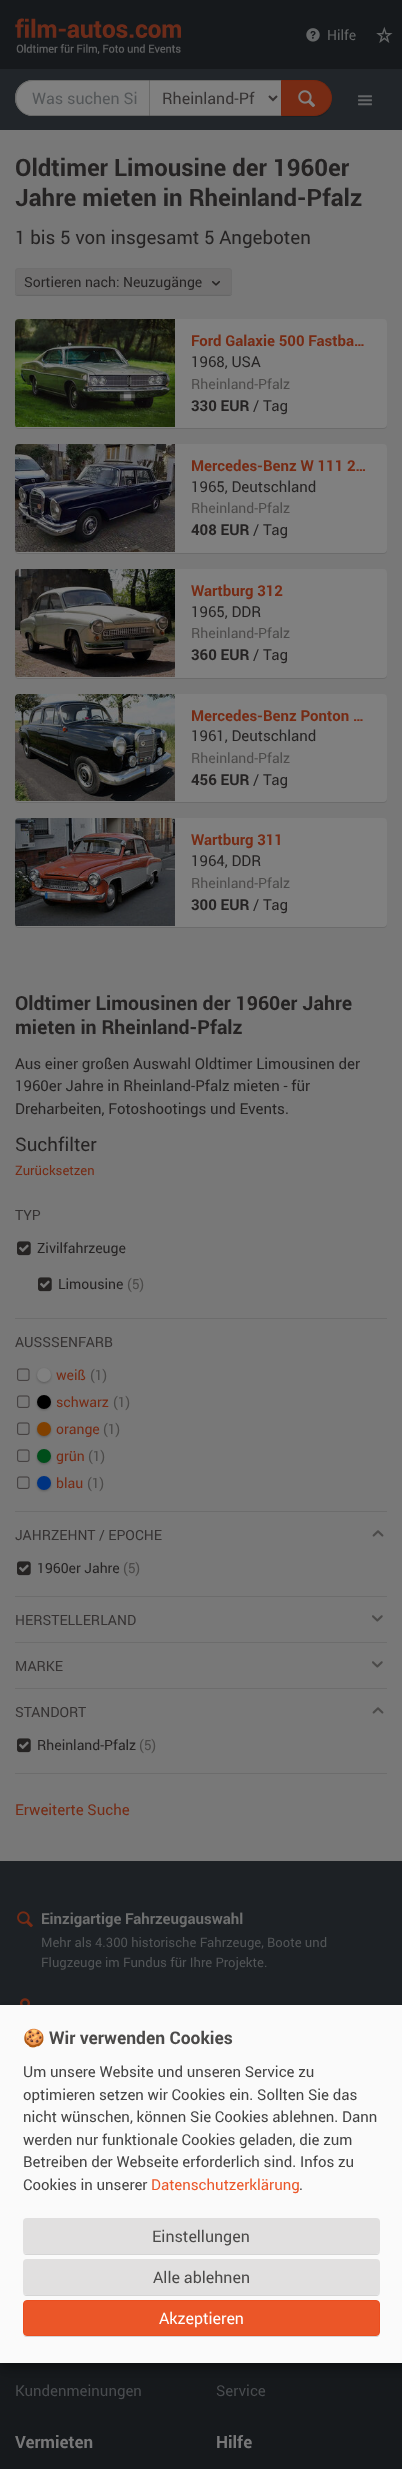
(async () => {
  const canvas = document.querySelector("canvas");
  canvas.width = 402;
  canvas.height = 2469;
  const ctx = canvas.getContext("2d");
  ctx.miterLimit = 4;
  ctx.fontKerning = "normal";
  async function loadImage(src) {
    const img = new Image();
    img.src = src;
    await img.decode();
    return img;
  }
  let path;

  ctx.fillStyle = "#787878";
  ctx.fillRect(0, 0, 402, 2469);
  ctx.fillStyle = "#16191c";
  ctx.fillRect(0, 0, 402, 69);
  ctx.drawImage(await loadImage("img/1.png"), 15, 18, 166, 36);
  ctx.drawImage(await loadImage("img/2.png"), 306, 28, 14, 14);
  ctx.drawImage(await loadImage("img/3.png"), 376, 26, 17, 17);
  ctx.fillStyle = "#212529";
  ctx.fillRect(0, 69, 402, 61);
  ctx.fillStyle = "#808080";
  ctx.beginPath();
  ctx.roundRect(15, 80, 134, 36, [18, 0, 0, 18]);
  ctx.fill();
  ctx.fillStyle = "#696968";
  path = new Path2D("M33 80H149V116H33C23 116 15 108 15 98C15 88 23 80 33 80ZM33 81H149V115H30C10 111 13 81 33 81Z");
  ctx.fill(path, "evenodd");
  ctx.fillStyle = "#808080";
  ctx.beginPath();
  ctx.rect(149.5, 80.5, 132, 35);
  ctx.fill();
  ctx.strokeStyle = "#696968";
  ctx.stroke();
  path = new Path2D("M269 96L273 100L277 96");
  ctx.strokeStyle = "#353232";
  ctx.lineWidth = 2;
  ctx.stroke(path);
  ctx.fillStyle = "#1c2023";
  path = new Path2D("M281 116V117H318C326 115 332 107 332 98C332 108 324 116 314 116Z");
  ctx.fill(path);
  ctx.fillStyle = "#762b14";
  ctx.beginPath();
  ctx.roundRect(281.5, 80.5, 50, 35, [0, 17.5, 17.5, 0]);
  ctx.fill();
  ctx.strokeStyle = "#752710";
  ctx.lineWidth = 1;
  ctx.stroke();
  ctx.drawImage(await loadImage("img/4.png"), 298, 90, 18, 18);
  ctx.drawImage(await loadImage("img/5.png"), 358, 95, 14, 11);
  ctx.fillStyle = "#666666";
  path = new Path2D("M15 292V293C15 295 16 296 18 296H229C231 296 232 295 232 293V292C232 294 231 295 229 295H18C16 295 15 294 15 292Z");
  ctx.fill(path);
  ctx.fillStyle = "#717070";
  ctx.beginPath();
  ctx.roundRect(15.5, 268.5, 216, 26, 2.5);
  ctx.fill();
  ctx.strokeStyle = "#6e6e6e";
  ctx.stroke();
  ctx.drawImage(await loadImage("img/6.png"), 212, 281, 8, 5);
  ctx.fillStyle = "rgba(0, 0, 0, 0.1)";
  ctx.filter = "blur(0.5px)";
  ctx.beginPath();
  ctx.roundRect(15, 320, 372, 109, 4);
  ctx.fill();
  ctx.filter = "none";
  ctx.fillStyle = "#808080";
  ctx.beginPath();
  ctx.roundRect(15, 319, 372, 109, 4);
  ctx.fill();
  ctx.drawImage(await loadImage("img/7.png"), 15, 319, 160, 108);
  ctx.fillStyle = "rgba(0, 0, 0, 0.1)";
  ctx.filter = "blur(0.5px)";
  ctx.beginPath();
  ctx.roundRect(15, 445, 372, 109, 4);
  ctx.fill();
  ctx.filter = "none";
  ctx.fillStyle = "#808080";
  ctx.beginPath();
  ctx.roundRect(15, 444, 372, 109, 4);
  ctx.fill();
  ctx.drawImage(await loadImage("img/8.png"), 15, 444, 160, 108);
  ctx.fillStyle = "rgba(0, 0, 0, 0.1)";
  ctx.filter = "blur(0.5px)";
  ctx.beginPath();
  ctx.roundRect(15, 570, 372, 109, 4);
  ctx.fill();
  ctx.filter = "none";
  ctx.fillStyle = "#808080";
  ctx.beginPath();
  ctx.roundRect(15, 569, 372, 109, 4);
  ctx.fill();
  ctx.drawImage(await loadImage("img/9.png"), 15, 569, 160, 108);
  ctx.fillStyle = "rgba(0, 0, 0, 0.1)";
  ctx.filter = "blur(0.5px)";
  ctx.beginPath();
  ctx.roundRect(15, 695, 372, 108, 4);
  ctx.fill();
  ctx.filter = "none";
  ctx.fillStyle = "#808080";
  ctx.beginPath();
  ctx.roundRect(15, 694, 372, 108, 4);
  ctx.fill();
  ctx.drawImage(await loadImage("img/10.png"), 15, 694, 160, 107);
  ctx.fillStyle = "rgba(0, 0, 0, 0.1)";
  ctx.filter = "blur(0.5px)";
  ctx.beginPath();
  ctx.roundRect(15, 819, 372, 109, 4);
  ctx.fill();
  ctx.filter = "none";
  ctx.fillStyle = "#808080";
  ctx.beginPath();
  ctx.roundRect(15, 818, 372, 109, 4);
  ctx.fill();
  ctx.drawImage(await loadImage("img/11.png"), 15, 818, 160, 108);
  ctx.drawImage(await loadImage("img/12.png"), 17, 1241, 14, 15);
  ctx.drawImage(await loadImage("img/12.png"), 38, 1277, 14, 15);
  ctx.fillStyle = "#6c6c6c";
  ctx.fillRect(15, 1318, 372, 1);
  ctx.drawImage(await loadImage("img/13.png"), 17, 1368, 13, 13);
  ctx.fillStyle = "rgba(0, 0, 0, 0.25)";
  ctx.filter = "blur(1px)";
  ctx.beginPath();
  ctx.roundRect(37, 1369, 14, 14, 7);
  ctx.fill();
  ctx.filter = "none";
  ctx.fillStyle = "#808080";
  ctx.beginPath();
  ctx.arc(44, 1375, 7, 0, Math.PI * 2);
  ctx.fill();
  ctx.drawImage(await loadImage("img/13.png"), 17, 1395, 13, 13);
  ctx.fillStyle = "rgba(0, 0, 0, 0.25)";
  ctx.filter = "blur(1px)";
  ctx.beginPath();
  ctx.roundRect(37, 1396, 14, 14, 7);
  ctx.fill();
  ctx.filter = "none";
  ctx.fillStyle = "#000000";
  ctx.beginPath();
  ctx.arc(44, 1402, 7, 0, Math.PI * 2);
  ctx.fill();
  ctx.drawImage(await loadImage("img/13.png"), 17, 1422, 13, 13);
  ctx.fillStyle = "rgba(0, 0, 0, 0.25)";
  ctx.filter = "blur(1px)";
  ctx.beginPath();
  ctx.roundRect(37, 1423, 14, 14, 7);
  ctx.fill();
  ctx.filter = "none";
  ctx.fillStyle = "#804000";
  ctx.beginPath();
  ctx.arc(44, 1429, 7, 0, Math.PI * 2);
  ctx.fill();
  ctx.drawImage(await loadImage("img/13.png"), 17, 1449, 13, 13);
  ctx.fillStyle = "rgba(0, 0, 0, 0.25)";
  ctx.filter = "blur(1px)";
  ctx.beginPath();
  ctx.roundRect(37, 1450, 14, 14, 7);
  ctx.fill();
  ctx.filter = "none";
  ctx.fillStyle = "#004d1a";
  ctx.beginPath();
  ctx.arc(44, 1456, 7, 0, Math.PI * 2);
  ctx.fill();
  ctx.drawImage(await loadImage("img/13.png"), 17, 1476, 13, 13);
  ctx.fillStyle = "rgba(0, 0, 0, 0.25)";
  ctx.filter = "blur(1px)";
  ctx.beginPath();
  ctx.roundRect(37, 1477, 14, 14, 7);
  ctx.fill();
  ctx.filter = "none";
  ctx.fillStyle = "#003380";
  ctx.beginPath();
  ctx.arc(44, 1483, 7, 0, Math.PI * 2);
  ctx.fill();
  ctx.fillStyle = "#6c6c6c";
  ctx.fillRect(15, 1511, 372, 1);
  ctx.drawImage(await loadImage("img/14.png"), 372, 1530, 12, 7);
  ctx.drawImage(await loadImage("img/12.png"), 17, 1561, 14, 15);
  ctx.fillRect(15, 1596, 372, 1);
  ctx.drawImage(await loadImage("img/15.png"), 372, 1615, 11, 7);
  ctx.fillRect(15, 1642, 372, 1);
  ctx.drawImage(await loadImage("img/15.png"), 372, 1661, 11, 7);
  ctx.fillRect(15, 1688, 372, 1);
  ctx.drawImage(await loadImage("img/14.png"), 372, 1707, 12, 7);
  ctx.drawImage(await loadImage("img/12.png"), 17, 1738, 14, 15);
  for (const [x, y, w, h, color] of [
    [15, 1773, 372, 1, "#6c6c6c"],
    [0, 2363, 402, 106, "#16191c"],
    [0, 1861, 402, 144, "#1d2125"],
  ]) {
    ctx.fillStyle = color;
    ctx.fillRect(x, y, w, h);
  }
  ctx.drawImage(await loadImage("img/16.png"), 17, 1911, 16, 17);
  ctx.drawImage(await loadImage("img/17.png"), 20, 1998, 10, 7);
  ctx.fillStyle = "rgba(0, 0, 0, 0.19)";
  ctx.filter = "blur(5px)";
  ctx.beginPath();
  ctx.rect(5, 2010, 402, 358);
  ctx.fill();
  ctx.filter = "none";
  ctx.fillStyle = "rgba(0, 0, 0, 0.2)";
  ctx.filter = "blur(3px)";
  ctx.beginPath();
  ctx.rect(0, 2009, 402, 358);
  ctx.fill();
  ctx.filter = "none";
  ctx.fillStyle = "#fafafa";
  ctx.fillRect(0, 2005, 402, 358);
  ctx.fillStyle = "#d5d5d5";
  path = new Path2D("M23 2250C23 2253 24 2255 27 2255H376C379 2255 380 2253 380 2250C380 2253 378 2254 376 2254H27C25 2254 23 2253 23 2250Z");
  ctx.fill(path);
  ctx.fillStyle = "#e1e0e0";
  ctx.beginPath();
  ctx.roundRect(23, 2218, 357, 36, 4);
  ctx.fill();
  ctx.fillStyle = "#d5d5d5";
  path = new Path2D("M23 2291C23 2294 24 2296 27 2296H376C379 2296 380 2294 380 2291C380 2294 378 2295 376 2295H27C25 2295 23 2294 23 2291Z");
  ctx.fill(path);
  ctx.fillStyle = "#e1e0e0";
  ctx.beginPath();
  ctx.roundRect(23, 2259, 357, 36, 4);
  ctx.fill();
  ctx.fillStyle = "#d5d5d5";
  path = new Path2D("M23 2332C23 2335 24 2337 27 2337H376C379 2337 380 2335 380 2332C380 2335 378 2336 376 2336H27C25 2336 23 2335 23 2332Z");
  ctx.fill(path);
  ctx.fillStyle = "#eb5628";
  ctx.beginPath();
  ctx.roundRect(23.5, 2300.5, 356, 35, 3.5);
  ctx.fill();
  ctx.strokeStyle = "#ea4e1f";
  ctx.stroke();
  ctx.font = "14px Roboto";
  ctx.fillStyle = "#646667";
  ctx.fillText("Hilfe", 327, 40);
  ctx.font = "16px Roboto";
  ctx.fillStyle = "#525557";
  ctx.fillText("Was suchen Si", 32, 104);
  ctx.fillStyle = "#353232";
  ctx.fillText("Rheinland-Pf", 162, 104);
  ctx.font = "bold 24px Roboto";
  ctx.fillStyle = "#252323";
  ctx.fillText("Oldtimer Limousine der 1960er", 15, 176);
  ctx.fillText("Jahre mieten in Rheinland-Pfalz", 15, 206);
  ctx.font = "18.75px Roboto";
  ctx.fillText("1 bis 5 von insgesamt 5 Angeboten", 15, 244);
  ctx.font = "14px Roboto";
  ctx.fillText("Sortieren nach: Neuzugänge", 24, 287);
  ctx.font = "bold 15px Roboto";
  ctx.fillStyle = "#762b14";
  ctx.fillText("Ford Galaxie 500 Fastba…", 191, 346);
  ctx.font = "15px Roboto";
  ctx.fillStyle = "#252323";
  ctx.fillText("1968, USA", 191, 367);
  ctx.font = "14px Roboto";
  ctx.fillStyle = "#4b4a49";
  ctx.fillText("Rheinland-Pfalz", 191, 389);
  ctx.font = "bold 15px Roboto";
  ctx.fillStyle = "#252323";
  ctx.fillText("330 EUR", 191, 411);
  ctx.font = "15px Roboto";
  ctx.fillText("/ Tag", 253, 411);
  ctx.font = "bold 15px Roboto";
  ctx.fillStyle = "#762b14";
  ctx.fillText("Mercedes-Benz W 111 2…", 191, 471);
  ctx.font = "15px Roboto";
  ctx.fillStyle = "#252323";
  ctx.fillText("1965, Deutschland", 191, 492);
  ctx.font = "14px Roboto";
  ctx.fillStyle = "#4b4a49";
  ctx.fillText("Rheinland-Pfalz", 191, 513);
  ctx.font = "bold 15px Roboto";
  ctx.fillStyle = "#252323";
  ctx.fillText("408 EUR", 191, 535);
  ctx.font = "15px Roboto";
  ctx.fillText("/ Tag", 253, 535);
  ctx.font = "bold 15px Roboto";
  ctx.fillStyle = "#762b14";
  ctx.fillText("Wartburg 312", 191, 596);
  ctx.font = "15px Roboto";
  ctx.fillStyle = "#252323";
  ctx.fillText("1965, DDR", 191, 617);
  ctx.font = "14px Roboto";
  ctx.fillStyle = "#4b4a49";
  ctx.fillText("Rheinland-Pfalz", 191, 638);
  ctx.font = "bold 15px Roboto";
  ctx.fillStyle = "#252323";
  ctx.fillText("360 EUR", 191, 660);
  ctx.font = "15px Roboto";
  ctx.fillText("/ Tag", 253, 660);
  ctx.font = "bold 15px Roboto";
  ctx.fillStyle = "#762b14";
  ctx.fillText("Mercedes-Benz Ponton …", 191, 721);
  ctx.font = "15px Roboto";
  ctx.fillStyle = "#252323";
  ctx.fillText("1961, Deutschland", 191, 741);
  ctx.font = "14px Roboto";
  ctx.fillStyle = "#4b4a49";
  ctx.fillText("Rheinland-Pfalz", 191, 763);
  ctx.font = "bold 15px Roboto";
  ctx.fillStyle = "#252323";
  ctx.fillText("456 EUR", 191, 785);
  ctx.font = "15px Roboto";
  ctx.fillText("/ Tag", 253, 785);
  ctx.font = "bold 15px Roboto";
  ctx.fillStyle = "#762b14";
  ctx.fillText("Wartburg 311", 191, 845);
  ctx.font = "15px Roboto";
  ctx.fillStyle = "#252323";
  ctx.fillText("1964, DDR", 191, 866);
  ctx.font = "14px Roboto";
  ctx.fillStyle = "#4b4a49";
  ctx.fillText("Rheinland-Pfalz", 191, 888);
  ctx.font = "bold 15px Roboto";
  ctx.fillStyle = "#252323";
  ctx.fillText("300 EUR", 191, 910);
  ctx.font = "15px Roboto";
  ctx.fillText("/ Tag", 253, 910);
  ctx.font = "bold 19.5px Roboto";
  ctx.fillText("Oldtimer Limousinen der 1960er Jahre", 15, 1010);
  ctx.fillText("mieten in Rheinland-Pfalz", 15, 1034);
  ctx.font = "15px Roboto";
  for (const [text, x, y] of [
    ["Aus einer großen Auswahl Oldtimer Limousinen der", 15, 1069],
    ["1960er Jahre in Rheinland-Pfalz mieten - für", 15, 1091],
    ["Dreharbeiten, Fotoshootings und Events.", 15, 1114],
  ]) {
    ctx.fillText(text, x, y);
  }
  ctx.font = "18.75px Roboto";
  ctx.fillText("Suchfilter", 15, 1151);
  ctx.font = "13.05px Roboto";
  ctx.fillStyle = "#762b14";
  ctx.fillText("Zurücksetzen", 15, 1175);
  ctx.font = "14px Roboto";
  ctx.fillStyle = "#353232";
  ctx.fillText("TYP", 15, 1220);
  ctx.fillStyle = "#252323";
  ctx.fillText("Zivilfahrzeuge", 37, 1253);
  ctx.fillText("Limousine", 58, 1289);
  ctx.fillStyle = "#4b4a49";
  ctx.fillText("(5)", 127, 1289);
  ctx.fillStyle = "#353232";
  ctx.fillText("AUSSSENFARB", 15, 1347);
  ctx.fillStyle = "#762b14";
  ctx.fillText("weiß", 56, 1380);
  ctx.fillStyle = "#4b4a49";
  ctx.fillText("(1)", 90, 1380);
  ctx.fillStyle = "#762b14";
  ctx.fillText("schwarz", 56, 1407);
  ctx.fillStyle = "#4b4a49";
  ctx.fillText("(1)", 113, 1407);
  ctx.fillStyle = "#762b14";
  ctx.fillText("orange", 56, 1434);
  ctx.fillStyle = "#4b4a49";
  ctx.fillText("(1)", 103, 1434);
  ctx.fillStyle = "#762b14";
  ctx.fillText("grün", 56, 1461);
  ctx.fillStyle = "#4b4a49";
  ctx.fillText("(1)", 88, 1461);
  ctx.fillStyle = "#762b14";
  ctx.fillText("blau", 56, 1488);
  ctx.fillStyle = "#4b4a49";
  ctx.fillText("(1)", 87, 1488);
  ctx.fillStyle = "#353232";
  ctx.fillText("JAHRZEHNT / EPOCHE", 15, 1540);
  ctx.fillStyle = "#252323";
  ctx.fillText("1960er Jahre", 37, 1573);
  ctx.fillStyle = "#4b4a49";
  ctx.fillText("(5)", 123, 1573);
  ctx.fillStyle = "#353232";
  for (const [text, x, y] of [
    ["HERSTELLERLAND", 15, 1625],
    ["MARKE", 15, 1671],
    ["STANDORT", 15, 1717],
  ]) {
    ctx.fillText(text, x, y);
  }
  ctx.fillStyle = "#252323";
  ctx.fillText("Rheinland-Pfalz", 37, 1750);
  ctx.fillStyle = "#4b4a49";
  ctx.fillText("(5)", 139, 1750);
  ctx.font = "15px Roboto";
  ctx.fillStyle = "#762b14";
  ctx.fillText("Erweiterte Suche", 15, 1815);
  ctx.font = "bold 15px Roboto";
  ctx.fillStyle = "#6e6f6f";
  ctx.fillText("Einzigartige Fahrzeugauswahl", 41, 1924);
  ctx.font = "13.05px Roboto";
  ctx.fillStyle = "#525557";
  ctx.fillText("Mehr als 4.300 historische Fahrzeuge, Boote und", 41, 1947);
  ctx.fillText("Flugzeuge im Fundus für Ihre Projekte.", 41, 1967);
  ctx.font = "15px Roboto";
  ctx.fillStyle = "#494c4f";
  ctx.fillText("Kundenmeinungen", 15, 2396);
  ctx.fillText("Service", 216, 2396);
  ctx.font = "bold 17px Roboto";
  ctx.fillStyle = "#777778";
  ctx.fillText("Vermieten", 15, 2448);
  ctx.fillText("Hilfe", 216, 2448);
  ctx.font = "bold 17.5px Noto Color Emoji";
  ctx.fillStyle = "#4b4a49";
  ctx.fillText("🍪", 23, 2044);
  ctx.font = "bold 17.5px Roboto";
  ctx.fillText("Wir verwenden Cookies", 49, 2044);
  ctx.font = "15px Roboto";
  ctx.fillStyle = "#444444";
  for (const [text, x, y] of [
    ["Um unsere Website und unseren Service zu", 23, 2077],
    ["optimieren setzen wir Cookies ein. Sollten Sie das", 23, 2100],
    ["nicht wünschen, können Sie Cookies ablehnen. Dann", 23, 2122],
    ["werden nur funktionale Cookies geladen, die zum", 23, 2145],
    ["Betreiben der Webseite erforderlich sind. Infos zu", 23, 2167],
    ["Cookies in unserer", 23, 2190],
  ]) {
    ctx.fillText(text, x, y);
  }
  ctx.fillStyle = "#eb5628";
  ctx.fillText("Datenschutzerklärung", 151, 2190);
  ctx.fillStyle = "#444444";
  ctx.fillText(".", 299, 2190);
  ctx.font = "16px Roboto";
  ctx.fillStyle = "#4b4a49";
  ctx.fillText("Einstellungen", 152, 2242);
  ctx.fillText("Alle ablehnen", 153, 2283);
  ctx.fillStyle = "#ffffff";
  ctx.fillText("Akzeptieren", 159, 2324);
})();
